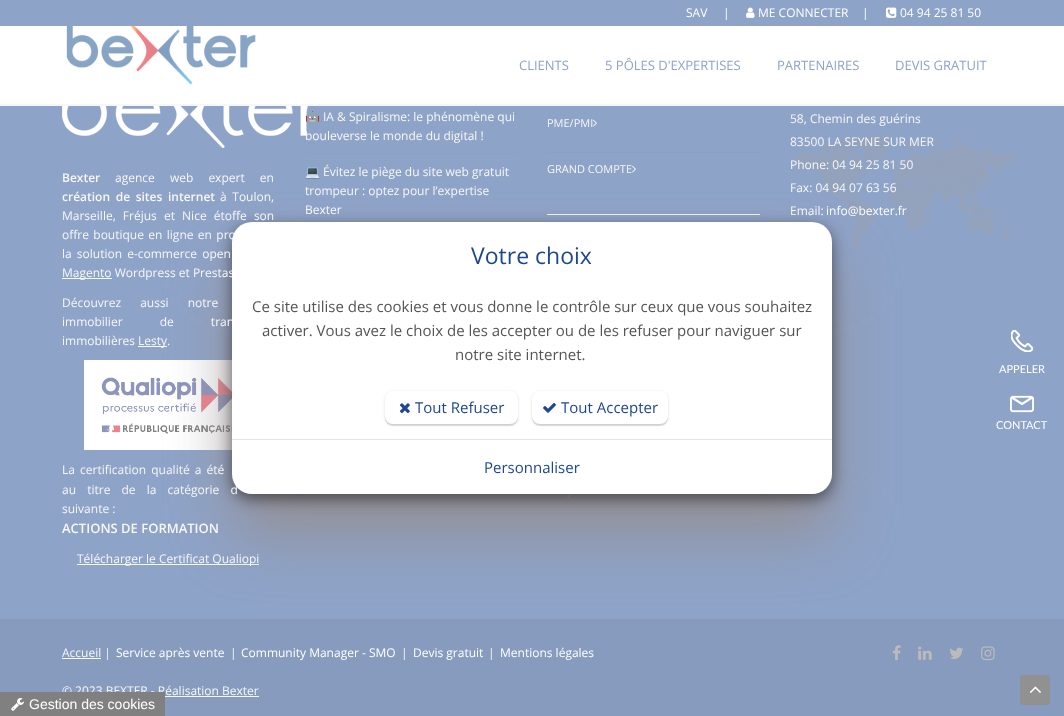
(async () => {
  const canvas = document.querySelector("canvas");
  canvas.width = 1064;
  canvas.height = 716;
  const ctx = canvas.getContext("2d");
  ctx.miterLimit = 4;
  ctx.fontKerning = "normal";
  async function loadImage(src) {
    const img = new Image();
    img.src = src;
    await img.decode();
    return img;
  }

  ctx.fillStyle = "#8ea3c8";
  ctx.fillRect(0, 0, 1064, 716);
  ctx.fillStyle = "#ffffff";
  ctx.fillRect(0, 26, 1064, 78);
  ctx.fillStyle = "#f7f7f7";
  ctx.fillRect(0, 104, 1064, 2);
  ctx.drawImage(await loadImage("img/1.png"), 746, 7, 9, 11);
  ctx.drawImage(await loadImage("img/2.png"), 886, 7, 11, 11);
  ctx.drawImage(await loadImage("img/3.png"), 66, 26, 190, 59);
  ctx.fillStyle = "#8ca0c4";
  ctx.fillRect(305, 153, 212, 1);
  ctx.drawImage(await loadImage("img/4.png"), 795, 136, 222, 111);
  ctx.drawImage(await loadImage("img/5.png"), 62, 106, 246, 42);
  ctx.fillStyle = "#f7f7f7";
  ctx.fillRect(62, 278, 50, 1);
  ctx.fillRect(138, 346, 29, 1);
  ctx.drawImage(await loadImage("img/6.png"), 84, 360, 148, 90);
  ctx.fillRect(77, 564, 182, 1);
  ctx.drawImage(await loadImage("img/7.png"), 593, 119, 4, 8);
  ctx.fillStyle = "#8ca0c4";
  ctx.fillRect(547, 152, 213, 1);
  ctx.drawImage(await loadImage("img/7.png"), 632, 165, 4, 8);
  ctx.fillStyle = "#f7f7f7";
  ctx.fillRect(547, 214, 213, 1);
  ctx.drawImage(await loadImage("img/8.png"), 567, 494, 4, 5);
  ctx.drawImage(await loadImage("img/9.png"), 1011, 330, 22, 22);
  ctx.drawImage(await loadImage("img/10.png"), 1010, 395, 24, 18);
  for (const [x, y, w, h, color] of [
    [0, 619, 1064, 97, "#869bbd"],
    [62, 658, 39, 1, "#f7f7f7"],
    [158, 696, 101, 1, "#f7f7f7"],
  ]) {
    ctx.fillStyle = color;
    ctx.fillRect(x, y, w, h);
  }
  ctx.drawImage(await loadImage("img/11.png"), 892, 645, 9, 16);
  ctx.drawImage(await loadImage("img/12.png"), 918, 646, 14, 14);
  ctx.drawImage(await loadImage("img/13.png"), 949, 647, 15, 12);
  ctx.drawImage(await loadImage("img/14.png"), 981, 646, 14, 15);
  ctx.fillStyle = "rgba(149, 141, 141, 0.88)";
  ctx.filter = "blur(30px)";
  ctx.beginPath();
  ctx.roundRect(232, 262, 600, 272, 20);
  ctx.fill();
  ctx.filter = "none";
  ctx.fillStyle = "rgba(0, 0, 0, 0.5)";
  ctx.filter = "blur(7.5px)";
  ctx.beginPath();
  ctx.roundRect(232, 227, 600, 272, 20);
  ctx.fill();
  ctx.filter = "none";
  ctx.fillStyle = "#919191";
  ctx.beginPath();
  ctx.roundRect(1020, 675, 30, 30, 3);
  ctx.fill();
  ctx.drawImage(await loadImage("img/18.png"), 1029, 686, 12, 7);
  ctx.font = "12px Open Sans";
  ctx.fillStyle = "#ffffff";
  for (const [text, x, y] of [
    ["SAV", 686, 17],
    ["|", 723, 17],
    ["ME CONNECTER", 758, 17],
    ["|", 862, 17],
    ["04 94 25 81 50", 900, 17],
  ]) {
    ctx.fillText(text, x, y);
  }
  ctx.font = "13px Open Sans";
  ctx.fillStyle = "#8ea3c8";
  for (const [text, x, y] of [
    ["CLIENTS", 519, 70],
    ["5 PÔLES D'EXPERTISES", 605, 70],
    ["PARTENAIRES", 777, 70],
    ["DEVIS GRATUIT", 895, 70],
  ]) {
    ctx.fillText(text, x, y);
  }
  ctx.font = "12px Noto Color Emoji";
  ctx.fillStyle = "#f7f7f7";
  ctx.fillText("🤖", 305, 121);
  ctx.font = "12px Open Sans";
  ctx.fillText("IA & Spiralisme: le phénomène qui", 323, 121);
  ctx.fillText("bouleverse le monde du digital !", 305, 140);
  ctx.font = "12px Noto Color Emoji";
  ctx.fillText("💻", 305, 176);
  ctx.font = "12px Open Sans";
  for (const [text, x, y] of [
    ["Évitez le piège du site web gratuit", 323, 176],
    ["trompeur : optez pour l’expertise", 305, 195],
    ["Bexter", 305, 214],
    ["58, Chemin des guérins", 790, 123],
    ["83500 LA SEYNE SUR MER", 790, 146],
    ["Phone: 04 94 25 81 50", 790, 169],
    ["Fax: 04 94 07 63 56", 790, 192],
    ["Email:", 790, 215],
  ]) {
    ctx.fillText(text, x, y);
  }
  ctx.fillStyle = "#ffffff";
  ctx.fillText("info@bexter.fr", 826, 215);
  ctx.font = "600 12px Open Sans";
  ctx.fillStyle = "#f7f7f7";
  ctx.fillText("Bexter", 62, 182);
  ctx.wordSpacing = "12px";
  ctx.font = "12px Open Sans";
  ctx.fillText("agence web expert en", 115, 182);
  ctx.wordSpacing = "2.5px";
  ctx.font = "600 12px Open Sans";
  ctx.fillText("création de sites internet", 62, 201);
  ctx.font = "12px Open Sans";
  ctx.fillText("à Toulon,", 220, 201);
  ctx.wordSpacing = "4px";
  ctx.fillText("Marseille, Fréjus et Nice étoffe son", 62, 220);
  ctx.wordSpacing = "1.25px";
  ctx.fillText("offre boutique en ligne en pro", 62, 239);
  ctx.wordSpacing = "2px";
  ctx.fillText("la solution e-commerce open", 62, 258);
  ctx.wordSpacing = "0px";
  ctx.fillText("Magento Wordpress et Prestas", 62, 277);
  ctx.wordSpacing = "16px";
  ctx.fillText("Découvrez aussi notre", 62, 307);
  ctx.wordSpacing = "34px";
  ctx.fillText("immobilier de tran", 62, 326);
  ctx.wordSpacing = "0px";
  ctx.fillText("immobilières", 62, 345);
  ctx.fillText("Lesty.", 138, 345);
  ctx.wordSpacing = "2px";
  ctx.fillText("La certification qualité a été", 62, 474);
  ctx.wordSpacing = "8px";
  ctx.fillText("au titre de la catégorie d", 62, 494);
  ctx.wordSpacing = "0px";
  ctx.fillText("suivante :", 62, 513);
  ctx.font = "600 13px Open Sans";
  ctx.fillText("ACTIONS DE FORMATION", 62, 533);
  ctx.font = "12px Open Sans";
  ctx.fillText("Télécharger le Certificat Qualiopi", 77, 563);
  ctx.font = "11px Open Sans";
  ctx.fillText("PME/PMI", 547, 127);
  ctx.fillText("GRAND COMPTE", 547, 173);
  ctx.font = "11px Lato";
  ctx.fillStyle = "#ffffff";
  ctx.fillText("APPELER", 999, 373);
  ctx.fillText("CONTACT", 996, 429);
  ctx.font = "12px Open Sans";
  ctx.fillStyle = "#f7f7f7";
  ctx.fillText("Accueil |", 62, 657);
  ctx.fillStyle = "#ffffff";
  ctx.fillText("Service après vente", 116, 657);
  ctx.fillStyle = "#f7f7f7";
  ctx.fillText("|", 230, 657);
  ctx.fillStyle = "#ffffff";
  ctx.fillText("Community Manager - SMO", 241, 657);
  ctx.fillStyle = "#f7f7f7";
  ctx.fillText("|", 401, 657);
  ctx.fillStyle = "#ffffff";
  ctx.fillText("Devis gratuit", 413, 657);
  ctx.fillStyle = "#f7f7f7";
  ctx.fillText("|", 488, 657);
  ctx.fillStyle = "#ffffff";
  ctx.fillText("Mentions légales", 500, 657);
  ctx.fillStyle = "#f7f7f7";
  ctx.fillText("© 2023 BEXTER - Réalisation Bexter", 62, 695);
  ctx.fillStyle = "#ffffff";
  ctx.beginPath();
  ctx.roundRect(232, 222, 600, 217, [20, 20, 0, 0]);
  ctx.fill();
  ctx.font = "23px Open Sans";
  ctx.fillStyle = "#1d4791";
  ctx.fillText("Votre choix", 471, 264);
  ctx.font = "15px Open Sans";
  ctx.fillStyle = "#555555";
  for (const [text, x, y] of [
    ["Ce site utilise des cookies et vous donne le contrôle sur ceux que vous souhaitez", 252, 312],
    ["activer. Vous avez le choix de les accepter ou de les refuser pour naviguer sur", 262, 336],
    ["notre site internet.", 455, 360],
  ]) {
    ctx.fillText(text, x, y);
  }
  ctx.fillStyle = "rgba(0, 0, 0, 0.13)";
  ctx.filter = "blur(1.5px)";
  ctx.beginPath();
  ctx.roundRect(385, 392, 133, 33, 8);
  ctx.fill();
  ctx.filter = "none";
  ctx.fillStyle = "rgba(0, 0, 0, 0.1)";
  ctx.filter = "blur(0.5px)";
  ctx.beginPath();
  ctx.roundRect(385, 393, 133, 33, 8);
  ctx.fill();
  ctx.filter = "none";
  ctx.fillStyle = "#ffffff";
  ctx.beginPath();
  ctx.roundRect(385, 391, 133, 33, 8);
  ctx.fill();
  ctx.drawImage(await loadImage("img/15.png"), 400, 403, 10, 11);
  ctx.fillStyle = "#1d4791";
  ctx.fillText("Tout Refuser", 415, 413);
  ctx.fillStyle = "rgba(0, 0, 0, 0.13)";
  ctx.filter = "blur(1.5px)";
  ctx.beginPath();
  ctx.roundRect(532, 392, 136, 33, 8);
  ctx.fill();
  ctx.filter = "none";
  ctx.fillStyle = "rgba(0, 0, 0, 0.1)";
  ctx.filter = "blur(0.5px)";
  ctx.beginPath();
  ctx.roundRect(532, 393, 136, 33, 8);
  ctx.fill();
  ctx.filter = "none";
  ctx.fillStyle = "#ffffff";
  ctx.beginPath();
  ctx.roundRect(532, 391, 136, 33, 8);
  ctx.fill();
  ctx.drawImage(await loadImage("img/16.png"), 543, 403, 13, 10);
  ctx.fillStyle = "#1d4791";
  ctx.fillText("Tout Accepter", 561, 413);
  ctx.fillStyle = "#ffffff";
  ctx.beginPath();
  ctx.roundRect(232, 439, 600, 55, [0, 0, 20, 20]);
  ctx.fill();
  ctx.fillStyle = "#e5e5e5";
  ctx.fillRect(232, 439, 600, 1);
  ctx.fillStyle = "#1d4791";
  ctx.fillText("Personnaliser", 484, 473);
  ctx.fillStyle = "#808080";
  ctx.fillRect(0, 692, 165, 24);
  ctx.drawImage(await loadImage("img/17.png"), 11, 698, 13, 13);
  ctx.font = "14px Liberation Sans";
  ctx.fillStyle = "#ffffff";
  ctx.fillText("Gestion des cookies", 29, 709);
})();
